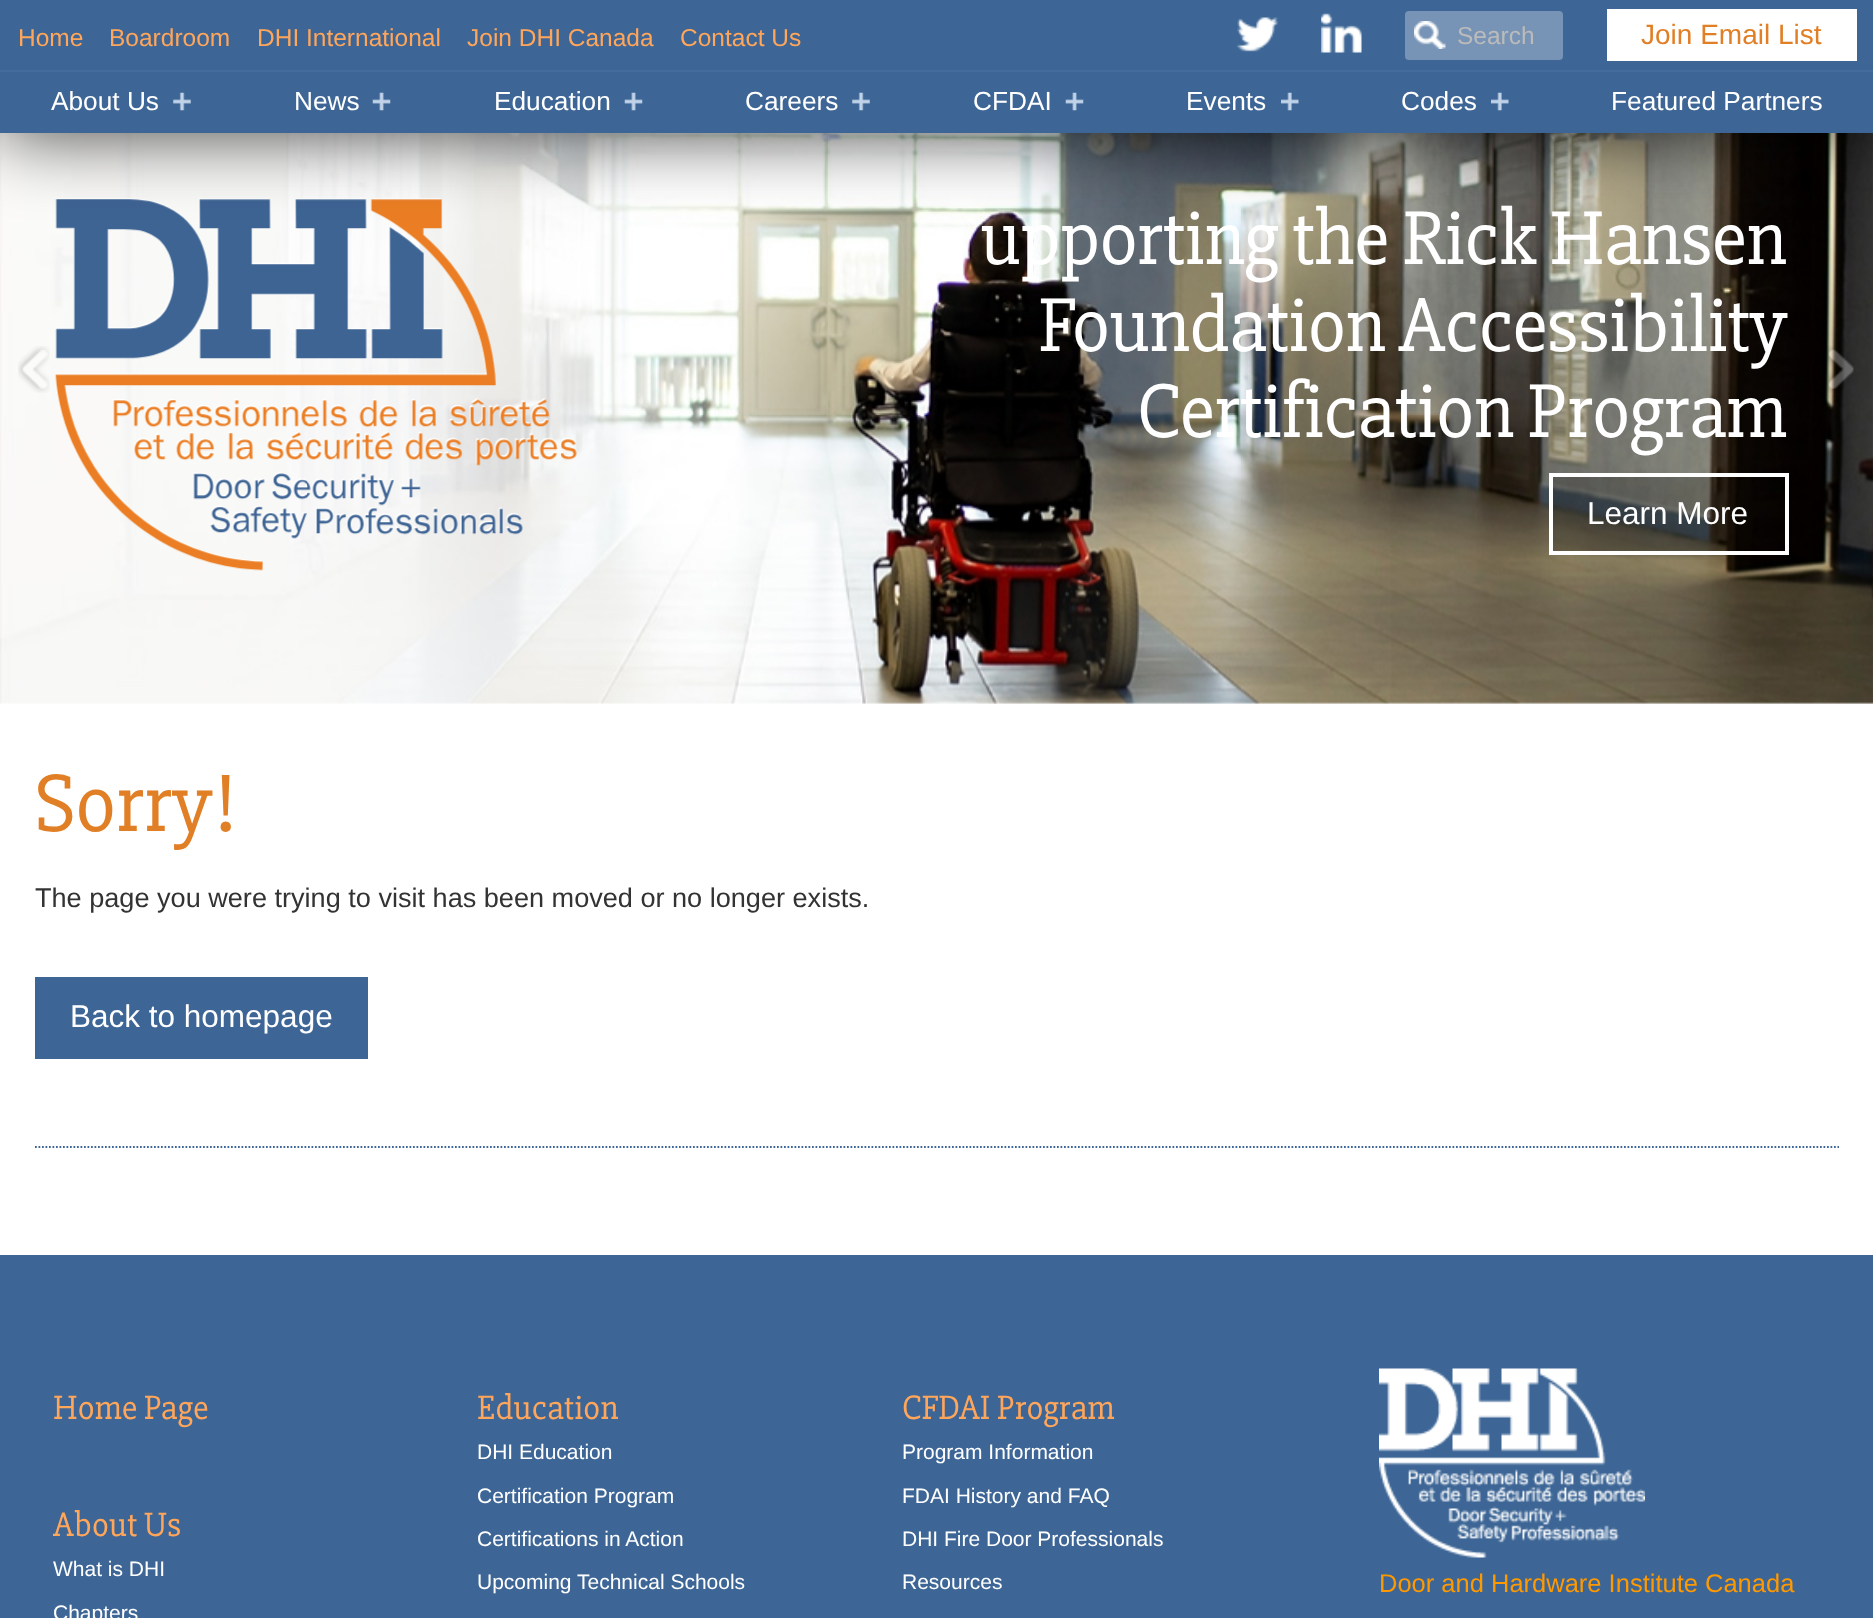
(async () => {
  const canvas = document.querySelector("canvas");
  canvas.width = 1873;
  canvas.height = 1618;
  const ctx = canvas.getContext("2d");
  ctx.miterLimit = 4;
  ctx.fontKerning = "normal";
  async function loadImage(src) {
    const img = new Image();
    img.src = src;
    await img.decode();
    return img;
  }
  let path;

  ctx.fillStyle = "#ffffff";
  ctx.fillRect(0, 0, 1873, 1618);
  ctx.drawImage(await loadImage("img/8.png"), 0, 133, 1873, 571);
  ctx.drawImage(await loadImage("img/9.png"), 55, 198, 522, 373);
  ctx.fillStyle = "rgba(0, 0, 0, 0.72)";
  ctx.filter = "blur(36px)";
  ctx.beginPath();
  ctx.rect(0, 2, 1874, 133);
  ctx.fill();
  ctx.filter = "none";
  ctx.fillStyle = "#3d6696";
  ctx.fillRect(0, 0, 1873, 133);
  ctx.drawImage(await loadImage("img/1.png"), 1237, 17, 41, 35);
  ctx.drawImage(await loadImage("img/2.png"), 1321, 13, 41, 40);
  ctx.fillStyle = "#7794b6";
  ctx.beginPath();
  ctx.roundRect(1405, 11, 158, 49, 4);
  ctx.fill();
  ctx.drawImage(await loadImage("img/3.png"), 1414, 21, 32, 28);
  ctx.fillStyle = "#ffffff";
  ctx.fillRect(1607, 9, 250, 52);
  ctx.fillStyle = "#446d9e";
  ctx.fillRect(0, 70, 1873, 2);
  ctx.drawImage(await loadImage("img/4.png"), 173, 92, 18, 19);
  ctx.drawImage(await loadImage("img/5.png"), 372, 92, 19, 19);
  ctx.drawImage(await loadImage("img/5.png"), 624, 92, 19, 19);
  ctx.drawImage(await loadImage("img/4.png"), 852, 92, 18, 19);
  ctx.drawImage(await loadImage("img/5.png"), 1065, 92, 19, 19);
  ctx.drawImage(await loadImage("img/6.png"), 1281, 92, 18, 19);
  ctx.drawImage(await loadImage("img/6.png"), 1491, 92, 18, 19);
  ctx.drawImage(await loadImage("img/7.png"), 18, 346, 32, 47);
  ctx.fillStyle = "rgba(0, 0, 0, 0.2)";
  ctx.fillRect(1553, 477, 185, 74);
  ctx.strokeStyle = "#ffffff";
  ctx.lineWidth = 4;
  ctx.strokeRect(1551, 475, 236, 78);
  ctx.drawImage(await loadImage("img/10.png"), 1827, 346, 27, 47);
  ctx.fillStyle = "#3d6696";
  ctx.fillRect(35, 977, 333, 82);
  path = new Path2D("M35 1147H1839");
  ctx.strokeStyle = "#3d6696";
  ctx.lineWidth = 1.8;
  ctx.setLineDash([1.75, 1.75]);
  ctx.stroke(path);
  ctx.fillRect(0, 1255, 1873, 363);
  ctx.drawImage(await loadImage("img/11.png"), 1379, 1368, 266, 190);
  ctx.font = "24.5px Liberation Sans";
  ctx.fillStyle = "#ffa65b";
  for (const [text, x, y] of [
    ["Home", 18, 46],
    ["Boardroom", 109, 46],
    ["DHI International", 257, 46],
    ["Join DHI Canada", 467, 46],
    ["Contact Us", 680, 46],
  ]) {
    ctx.fillText(text, x, y);
  }
  ctx.fillStyle = "#bbbbbb";
  ctx.fillText("Search", 1457, 44);
  ctx.font = "28px Liberation Sans";
  ctx.fillStyle = "#e17f26";
  ctx.fillText("Join Email List", 1641, 44);
  ctx.font = "26.25px Liberation Sans";
  ctx.fillStyle = "#ffffff";
  for (const [text, x, y] of [
    ["About Us", 51, 110],
    ["News", 294, 110],
    ["Education", 494, 110],
    ["Careers", 745, 110],
    ["CFDAI", 973, 110],
    ["Events", 1186, 110],
    ["Codes", 1401, 110],
    ["Featured Partners", 1611, 110],
  ]) {
    ctx.fillText(text, x, y);
  }
  ctx.letterSpacing = "-0.9px";
  ctx.font = "78.75px 'Slabo 27px'";
  for (const [text, x, y] of [
    ["upporting the Rick Hansen", 980, 264],
    ["Foundation Accessibility", 1038, 351],
    ["Certification Program", 1137, 437],
  ]) {
    ctx.fillText(text, x, y);
  }
  ctx.letterSpacing = "0px";
  ctx.font = "31.5px Liberation Sans";
  ctx.fillText("Learn More", 1587, 524);
  ctx.font = "84px 'Slabo 27px'";
  ctx.fillStyle = "#e17f26";
  ctx.fillText("Sorry!", 35, 831);
  ctx.font = "27.1px Liberation Sans";
  ctx.fillStyle = "#333333";
  ctx.fillText("The page you were trying to visit has been moved or no longer exists.", 35, 907);
  ctx.font = "31.5px Liberation Sans";
  ctx.fillStyle = "#ffffff";
  ctx.fillText("Back to homepage", 70, 1027);
  ctx.font = "35px 'Slabo 27px'";
  ctx.fillStyle = "#ffa65b";
  ctx.fillText("Home Page", 53, 1419);
  ctx.fillText("About Us", 53, 1536);
  ctx.font = "21px Liberation Sans";
  ctx.fillStyle = "#ffffff";
  ctx.fillText("What is DHI", 53, 1576);
  ctx.fillText("Chapters", 53, 1620);
  ctx.font = "35px 'Slabo 27px'";
  ctx.fillStyle = "#ffa65b";
  ctx.fillText("Education", 477, 1419);
  ctx.font = "21px Liberation Sans";
  ctx.fillStyle = "#ffffff";
  for (const [text, x, y] of [
    ["DHI Education", 477, 1459],
    ["Certification Program", 477, 1503],
    ["Certifications in Action", 477, 1546],
    ["Upcoming Technical Schools", 477, 1589],
  ]) {
    ctx.fillText(text, x, y);
  }
  ctx.font = "35px 'Slabo 27px'";
  ctx.fillStyle = "#ffa65b";
  ctx.fillText("CFDAI Program", 902, 1419);
  ctx.font = "21px Liberation Sans";
  ctx.fillStyle = "#ffffff";
  for (const [text, x, y] of [
    ["Program Information", 902, 1459],
    ["FDAI History and FAQ", 902, 1503],
    ["DHI Fire Door Professionals", 902, 1546],
    ["Resources", 902, 1589],
  ]) {
    ctx.fillText(text, x, y);
  }
  ctx.font = "25.5px Liberation Sans";
  ctx.fillStyle = "#ff9900";
  ctx.fillText("Door and Hardware Institute Canada", 1379, 1592);
})();
